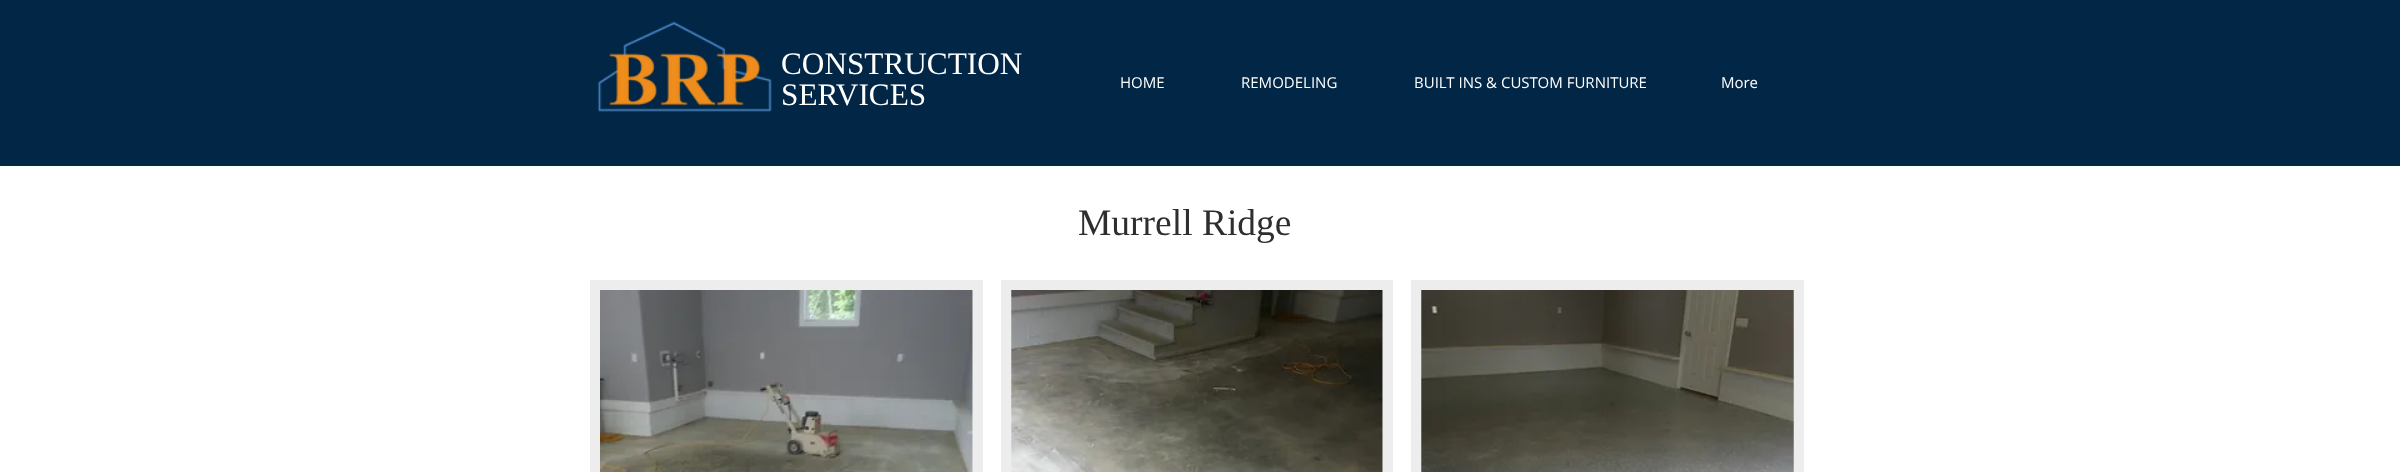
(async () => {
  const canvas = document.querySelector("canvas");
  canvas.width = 2400;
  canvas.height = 472;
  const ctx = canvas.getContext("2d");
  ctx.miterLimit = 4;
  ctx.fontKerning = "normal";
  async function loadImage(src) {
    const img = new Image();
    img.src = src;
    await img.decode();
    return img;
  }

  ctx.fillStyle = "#ffffff";
  ctx.fillRect(0, 0, 2400, 472);
  ctx.fillStyle = "#012646";
  ctx.fillRect(0, 0, 2400, 166);
  ctx.drawImage(await loadImage("img/1.png"), 597, 21, 175, 91);
  ctx.fillStyle = "#f5f5f5";
  ctx.fillRect(972, 290, 1, 182);
  ctx.strokeStyle = "#ededed";
  ctx.lineWidth = 10;
  ctx.strokeRect(595, 285, 383, 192);
  ctx.drawImage(await loadImage("img/2.png"), 600, 290, 373, 182);
  ctx.beginPath();
  ctx.rect(1006, 285, 382, 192);
  ctx.fill();
  ctx.stroke();
  ctx.drawImage(await loadImage("img/3.png"), 1011, 290, 372, 182);
  ctx.strokeRect(1416, 285, 383, 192);
  ctx.drawImage(await loadImage("img/4.png"), 1421, 290, 373, 182);
  ctx.font = "31.25px Liberation Serif";
  ctx.fillStyle = "#ffffff";
  ctx.fillText("CONSTRUCTION", 781, 74);
  ctx.fillText("SERVICES", 781, 105);
  ctx.font = "15px Open Sans";
  for (const [text, x, y] of [
    ["HOME", 1120, 88],
    ["REMODELING", 1241, 88],
    ["BUILT INS & CUSTOM FURNITURE", 1414, 88],
    ["More", 1721, 88],
  ]) {
    ctx.fillText(text, x, y);
  }
  ctx.font = "37.5px Liberation Serif";
  ctx.fillStyle = "#2f2e2e";
  ctx.fillText("Murrell Ridge", 1078, 235);
})();
